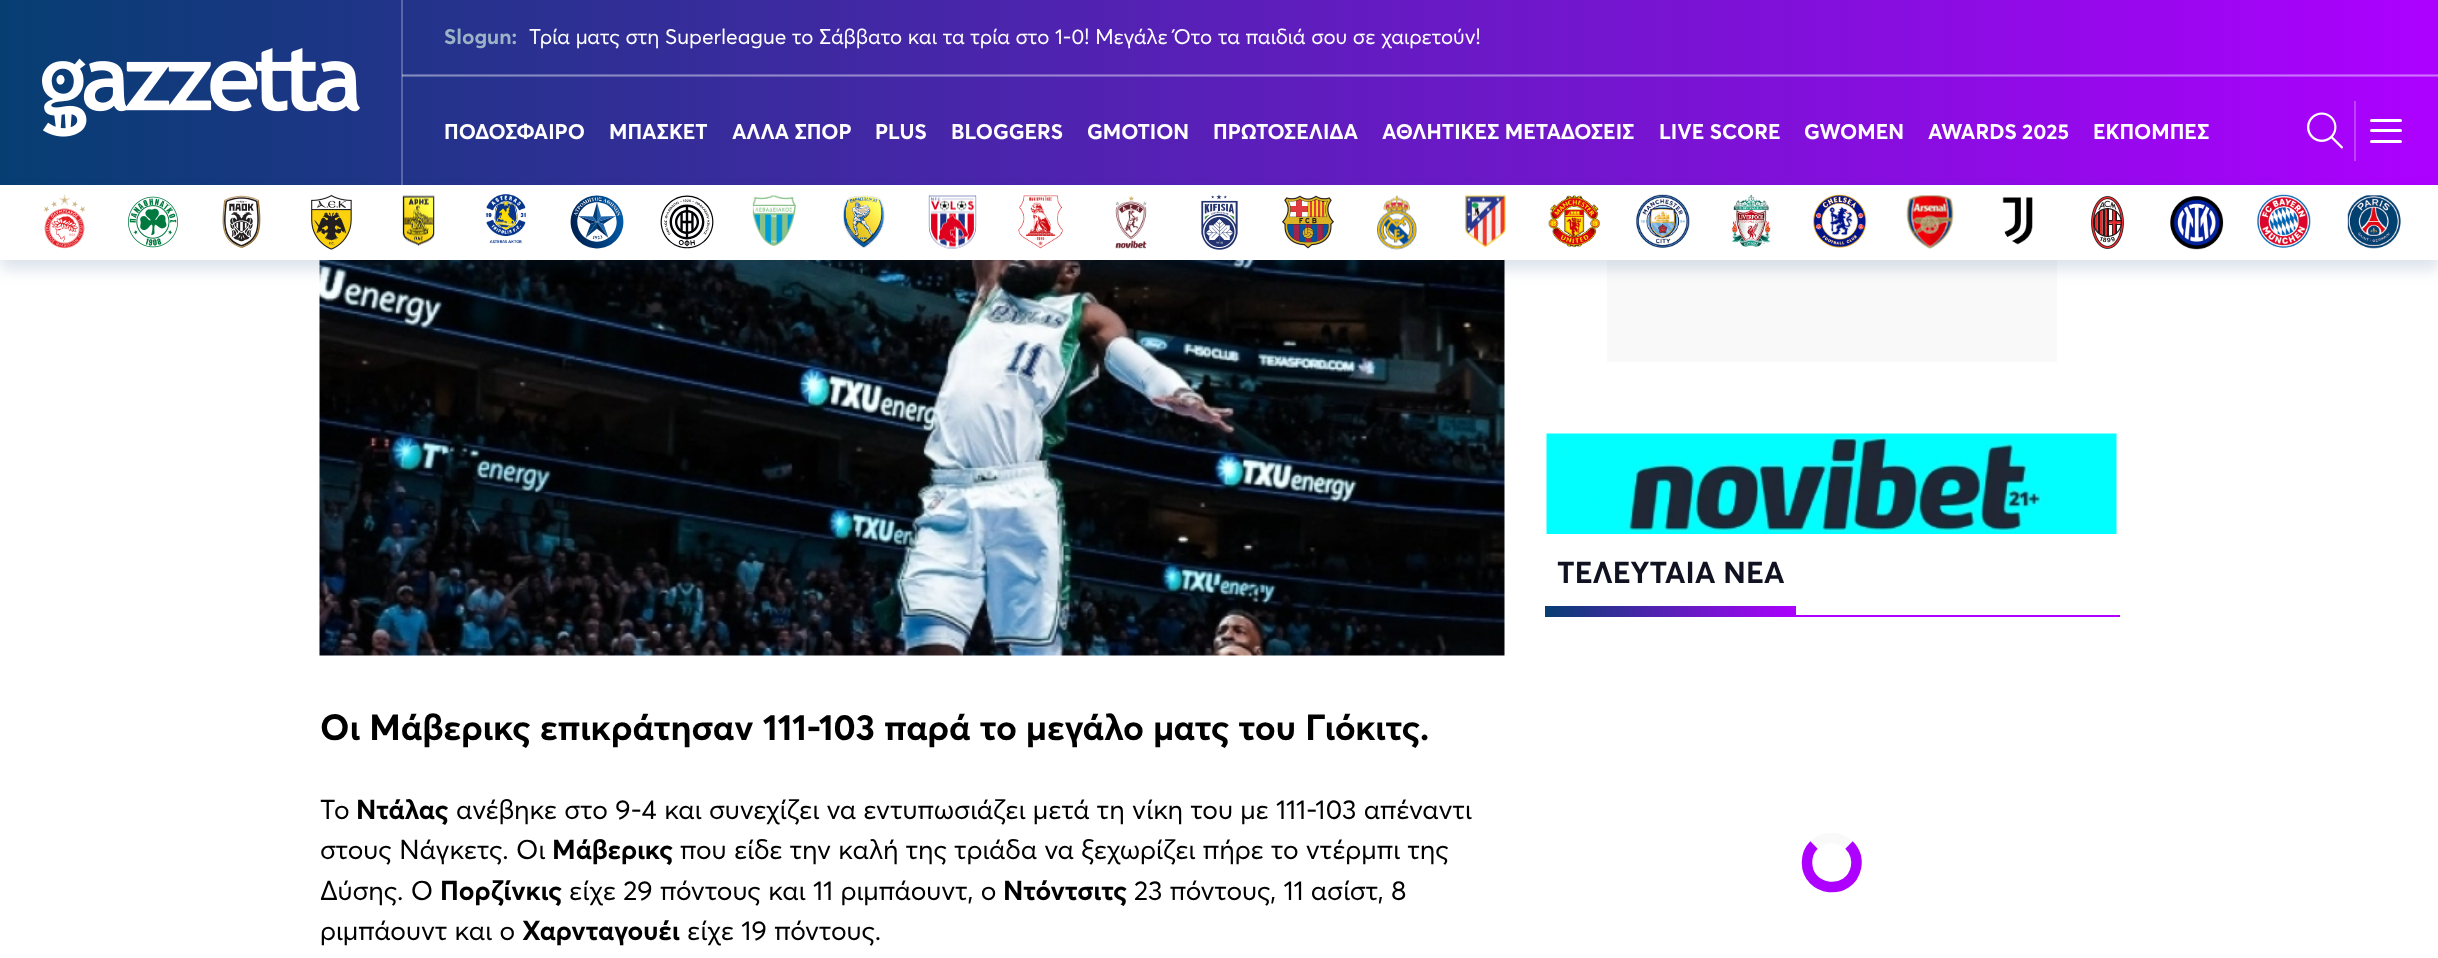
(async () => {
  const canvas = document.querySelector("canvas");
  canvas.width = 2438;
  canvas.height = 958;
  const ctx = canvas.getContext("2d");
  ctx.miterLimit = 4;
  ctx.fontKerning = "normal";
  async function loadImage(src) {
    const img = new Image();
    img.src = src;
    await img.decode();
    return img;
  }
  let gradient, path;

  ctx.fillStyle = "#ffffff";
  ctx.fillRect(0, 0, 2438, 958);
  gradient = ctx.createLinearGradient(0, 130, 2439, 130);
  gradient.addColorStop(0, "#063e72");
  gradient.addColorStop(1, "#ad00ff");
  ctx.fillStyle = gradient;
  ctx.fillRect(0, 0, 2438, 185);
  for (const [x, y, w, h, color] of [
    [402, 74, 2036, 2, "rgba(255, 255, 255, 0.25)"],
    [402, 75, 2036, 2, "rgba(255, 255, 255, 0.25)"],
    [401, 0, 2, 185, "rgba(255, 255, 255, 0.25)"],
  ]) {
    ctx.fillStyle = color;
    ctx.fillRect(x, y, w, h);
  }
  ctx.drawImage(await loadImage("img/1.png"), 42, 48, 318, 89);
  ctx.fillStyle = "#bd41fb";
  ctx.fillRect(2354, 101, 2, 60);
  ctx.drawImage(await loadImage("img/2.png"), 2307, 112, 36, 37);
  ctx.fillStyle = "#ffffff";
  ctx.beginPath();
  ctx.roundRect(2370, 119, 32, 3, 1.5);
  ctx.fill();
  ctx.beginPath();
  ctx.roundRect(2370, 129, 32, 3, 1.5);
  ctx.fill();
  ctx.beginPath();
  ctx.roundRect(2370, 140, 32, 3, 1.5);
  ctx.fill();
  ctx.fillStyle = "#f9f9f9";
  ctx.fillRect(1607, 260, 450, 102);
  ctx.drawImage(await loadImage("img/31.png"), 319, 260, 1186, 396);
  ctx.fillStyle = "rgba(6, 62, 114, 0.15)";
  ctx.filter = "blur(7.5px)";
  ctx.beginPath();
  ctx.rect(0, 194, 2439, 75);
  ctx.fill();
  ctx.filter = "none";
  ctx.fillStyle = "#ffffff";
  ctx.fillRect(0, 185, 2438, 75);
  ctx.drawImage(await loadImage("img/3.png"), 43, 194, 43, 55);
  ctx.drawImage(await loadImage("img/4.png"), 128, 196, 50, 52);
  ctx.drawImage(await loadImage("img/5.png"), 222, 195, 39, 53);
  ctx.drawImage(await loadImage("img/6.png"), 311, 194, 41, 56);
  ctx.drawImage(await loadImage("img/7.png"), 402, 195, 33, 52);
  ctx.drawImage(await loadImage("img/8.png"), 485, 194, 41, 50);
  ctx.drawImage(await loadImage("img/9.png"), 570, 195, 54, 54);
  ctx.drawImage(await loadImage("img/10.png"), 660, 195, 54, 54);
  ctx.drawImage(await loadImage("img/11.png"), 752, 195, 44, 51);
  ctx.drawImage(await loadImage("img/12.png"), 843, 195, 42, 53);
  ctx.drawImage(await loadImage("img/13.png"), 928, 195, 49, 54);
  ctx.drawImage(await loadImage("img/14.png"), 1018, 195, 45, 54);
  ctx.drawImage(await loadImage("img/15.png"), 1115, 196, 32, 53);
  ctx.drawImage(await loadImage("img/16.png"), 1201, 194, 37, 56);
  ctx.drawImage(await loadImage("img/17.png"), 1282, 195, 52, 54);
  ctx.drawImage(await loadImage("img/18.png"), 1377, 195, 40, 55);
  ctx.drawImage(await loadImage("img/19.png"), 1464, 194, 42, 54);
  ctx.drawImage(await loadImage("img/20.png"), 1548, 194, 52, 54);
  ctx.drawImage(await loadImage("img/21.png"), 1636, 194, 54, 54);
  ctx.drawImage(await loadImage("img/22.png"), 1731, 194, 40, 54);
  ctx.drawImage(await loadImage("img/23.png"), 1813, 194, 54, 54);
  ctx.drawImage(await loadImage("img/24.png"), 1906, 195, 48, 54);
  ctx.drawImage(await loadImage("img/25.png"), 2002, 197, 31, 48);
  ctx.drawImage(await loadImage("img/26.png"), 2091, 196, 33, 53);
  ctx.drawImage(await loadImage("img/27.png"), 2170, 196, 54, 54);
  ctx.drawImage(await loadImage("img/28.png"), 2257, 194, 54, 54);
  ctx.drawImage(await loadImage("img/29.png"), 2347, 195, 54, 54);
  ctx.drawImage(await loadImage("img/30.png"), 1546, 433, 571, 101);
  ctx.fillStyle = "#ad00ff";
  ctx.fillRect(1796, 615, 324, 2);
  gradient = ctx.createLinearGradient(1545, 611, 1796, 611);
  gradient.addColorStop(0, "#063e72");
  gradient.addColorStop(1, "#ad00ff");
  ctx.fillStyle = gradient;
  ctx.fillRect(1545, 606, 251, 11);
  path = new Path2D("M1814 845C1823.5 835.5 1839.5 835.5 1849 845");
  ctx.strokeStyle = "#f9f9f9";
  ctx.lineWidth = 10.5;
  ctx.stroke(path);
  path = new Path2D("M1849 845C1855 851 1857.5 859.5 1856 867.5C1850 896.5 1807 892 1807 862.5C1807 856 1809.5 849.5 1814 845");
  ctx.strokeStyle = "#ad00ff";
  ctx.stroke(path);
  ctx.font = "bold 21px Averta";
  ctx.fillStyle = "#9bb2c7";
  ctx.fillText("Slogun:", 444, 44);
  ctx.font = "21px Averta";
  ctx.fillStyle = "#ffffff";
  ctx.fillText("Τρία ματς στη Superleague το Σάββατο και τα τρία στο 1-0! Μεγάλε Ότο τα παιδιά σου σε χαιρετούν!", 529, 44);
  ctx.font = "bold 21px Averta";
  for (const [text, x, y] of [
    ["ΠΟΔΟΣΦΑΙΡΟ", 444, 139],
    ["ΜΠΑΣΚΕΤ", 609, 139],
    ["ΑΛΛΑ ΣΠΟΡ", 732, 139],
    ["PLUS", 875, 139],
    ["BLOGGERS", 951, 139],
    ["GMOTION", 1087, 139],
    ["ΠΡΩΤΟΣΕΛΙΔΑ", 1213, 139],
    ["ΑΘΛΗΤΙΚΕΣ ΜΕΤΑΔΟΣΕΙΣ", 1382, 139],
    ["LIVE SCORE", 1659, 139],
    ["GWOMEN", 1804, 139],
    ["AWARDS 2025", 1928, 139],
    ["ΕΚΠΟΜΠΕΣ", 2093, 139],
  ]) {
    ctx.fillText(text, x, y);
  }
  ctx.font = "bold 30px Averta";
  ctx.fillStyle = "#101222";
  ctx.fillText("ΤΕΛΕΥΤΑΙΑ ΝΕΑ", 1557, 583);
  ctx.font = "bold 36px Averta";
  ctx.fillStyle = "#000000";
  ctx.fillText("Oι Μάβερικς επικράτησαν 111-103 παρά το μεγάλο ματς του Γιόκιτς.", 320, 740);
  ctx.font = "27px Averta";
  ctx.fillText("Το", 320, 819);
  ctx.font = "bold 27px Averta";
  ctx.fillText("Ντάλας", 356, 819);
  ctx.font = "27px Averta";
  ctx.fillText("ανέβηκε στο 9-4 και συνεχίζει να εντυπωσιάζει μετά τη νίκη του με 111-103 απέναντι", 456, 819);
  ctx.fillText("στους Νάγκετς. Οι", 320, 859);
  ctx.font = "bold 27px Averta";
  ctx.fillText("Μάβερικς", 552, 859);
  ctx.font = "27px Averta";
  ctx.fillText("που είδε την καλή της τριάδα να ξεχωρίζει πήρε το ντέρμπι της", 680, 859);
  ctx.fillText("Δύσης. Ο", 320, 900);
  ctx.font = "bold 27px Averta";
  ctx.fillText("Πορζίνκις", 440, 900);
  ctx.font = "27px Averta";
  ctx.fillText("είχε 29 πόντους και 11 ριμπάουντ, ο", 569, 900);
  ctx.font = "bold 27px Averta";
  ctx.fillText("Ντόντσιτς", 1003, 900);
  ctx.font = "27px Averta";
  ctx.fillText("23 πόντους, 11 ασίστ, 8", 1134, 900);
  ctx.fillText("ριμπάουντ και ο", 320, 940);
  ctx.font = "bold 27px Averta";
  ctx.fillText("Χαρνταγουέι", 522, 940);
  ctx.font = "27px Averta";
  ctx.fillText("είχε 19 πόντους.", 687, 940);
})();
